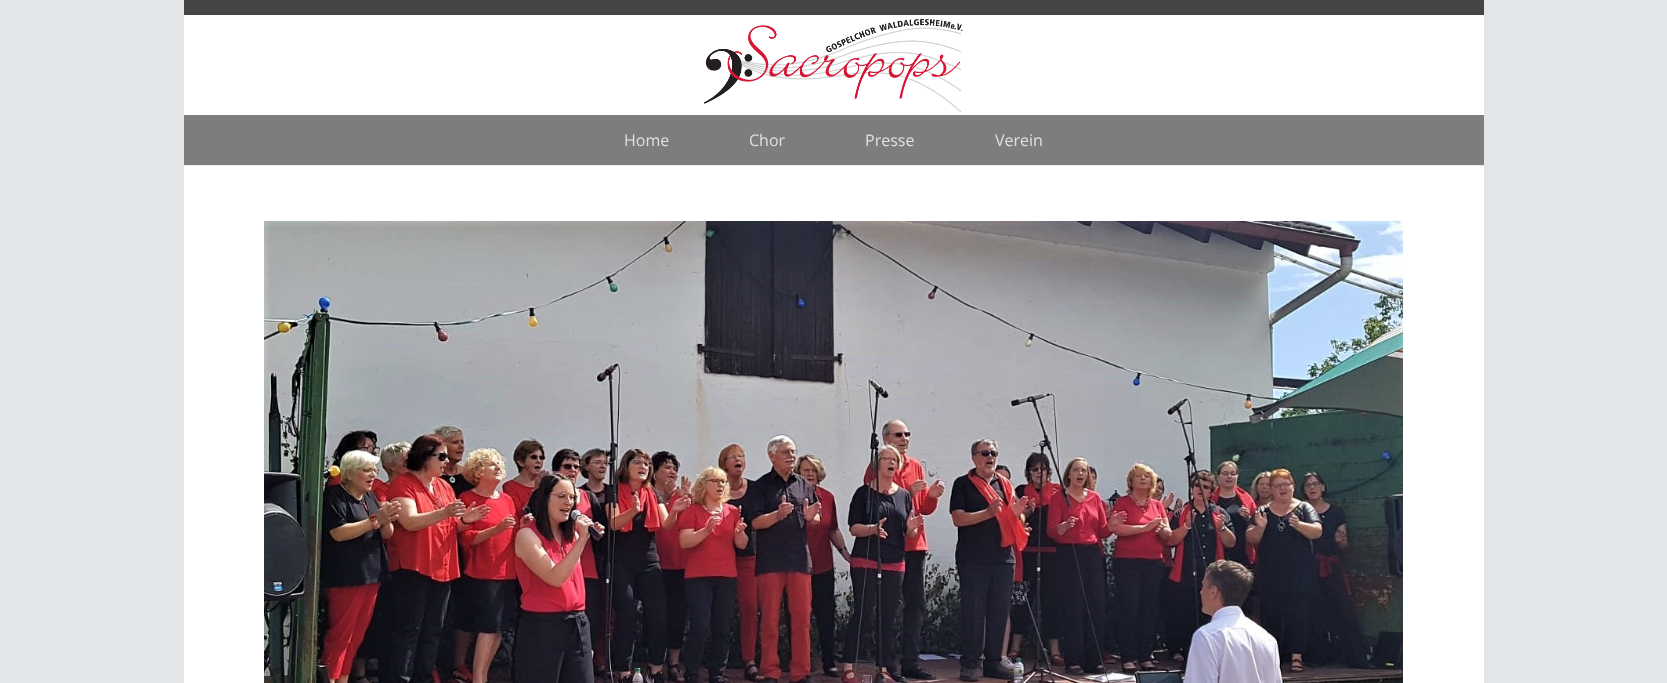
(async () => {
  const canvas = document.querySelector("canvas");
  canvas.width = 1667;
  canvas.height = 683;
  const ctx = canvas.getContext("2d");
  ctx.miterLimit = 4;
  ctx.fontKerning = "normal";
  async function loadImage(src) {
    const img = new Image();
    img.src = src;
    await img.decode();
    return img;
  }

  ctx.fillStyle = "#e3e6e8";
  ctx.fillRect(0, 0, 1667, 683);
  ctx.fillStyle = "#ffffff";
  ctx.fillRect(184, 15, 1300, 668);
  ctx.fillStyle = "#454545";
  ctx.fillRect(184, 0, 1300, 15);
  ctx.drawImage(await loadImage("img/1.png"), 704, 19, 259, 94);
  ctx.fillStyle = "#ebebeb";
  ctx.fillRect(184, 165, 1300, 1);
  ctx.fillStyle = "#7d7d7d";
  ctx.fillRect(184, 115, 1300, 50);
  ctx.drawImage(await loadImage("img/2.png"), 264, 221, 1139, 462);
  ctx.font = "16px Open Sans";
  ctx.fillStyle = "#e0e0e0";
  for (const [text, x, y] of [
    ["Home", 624, 146],
    ["Chor", 749, 146],
    ["Presse", 865, 146],
    ["Verein", 995, 146],
  ]) {
    ctx.fillText(text, x, y);
  }
})();
